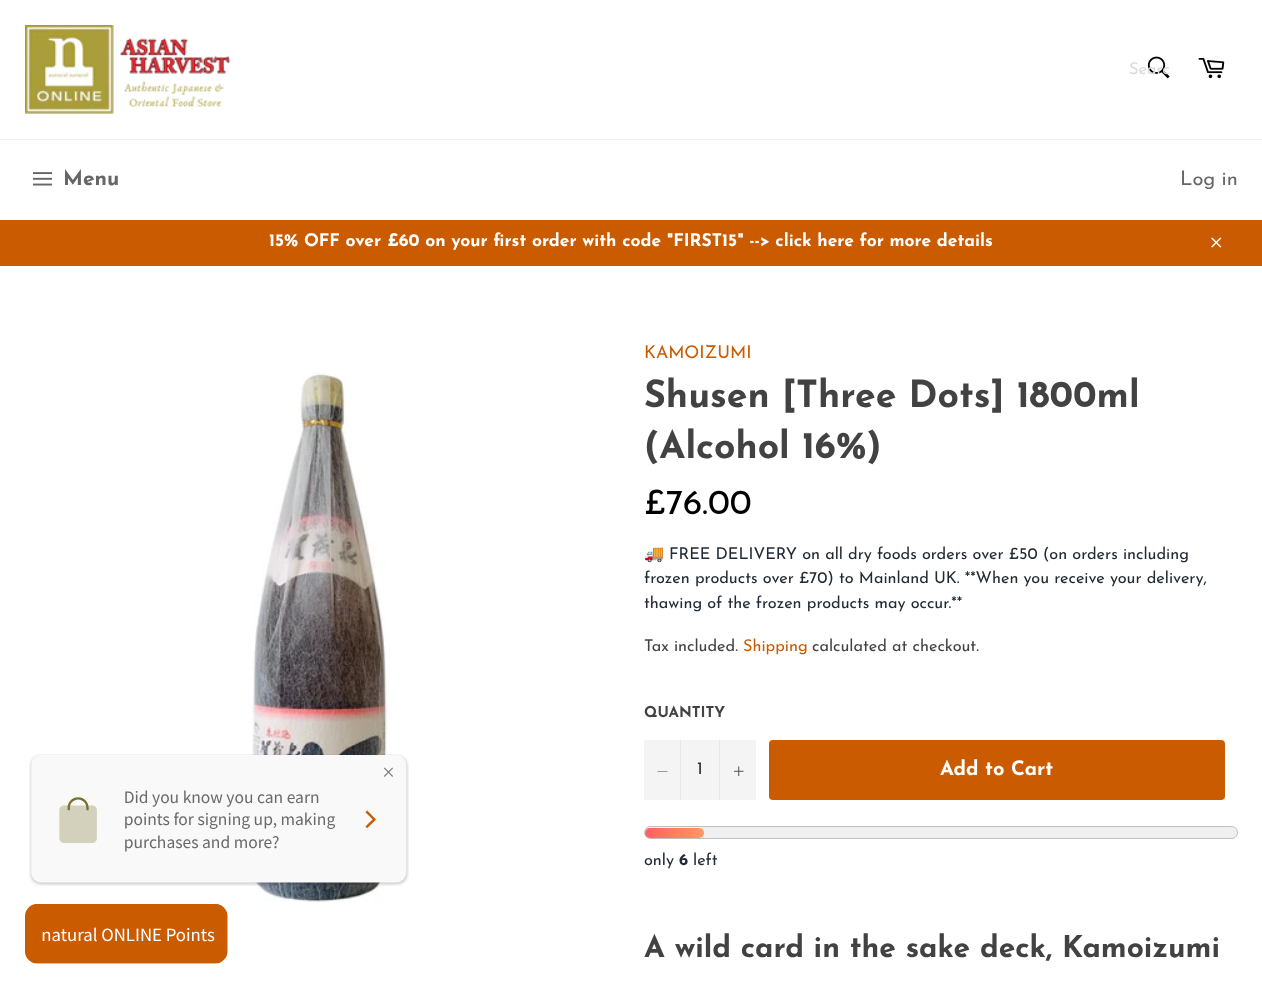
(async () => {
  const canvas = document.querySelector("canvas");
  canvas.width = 1262;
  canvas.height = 988;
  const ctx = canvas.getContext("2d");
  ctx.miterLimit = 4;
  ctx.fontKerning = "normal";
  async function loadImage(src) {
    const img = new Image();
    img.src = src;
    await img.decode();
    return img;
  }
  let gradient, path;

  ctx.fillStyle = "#ffffff";
  ctx.fillRect(0, 0, 1262, 988);
  ctx.drawImage(await loadImage("img/1.png"), 25, 25, 206, 89);
  ctx.drawImage(await loadImage("img/2.png"), 1147, 56, 23, 23);
  ctx.drawImage(await loadImage("img/3.png"), 1198, 58, 27, 21);
  ctx.fillStyle = "#f2f2f2";
  ctx.fillRect(0, 139, 1262, 1);
  ctx.drawImage(await loadImage("img/4.png"), 32, 172, 21, 14);
  ctx.fillStyle = "#ca5b00";
  ctx.fillRect(0, 220, 1262, 46);
  ctx.drawImage(await loadImage("img/5.png"), 1211, 237, 11, 11);
  ctx.drawImage(await loadImage("img/7.png"), 248, 373, 139, 529);
  ctx.drawImage(await loadImage("img/6.png"), 29, 754, 380, 132);
  ctx.fillStyle = "#f4f4f4";
  ctx.fillRect(644, 740, 112, 60);
  ctx.fillStyle = "#e7e7e7";
  ctx.fillRect(680, 740, 1, 60);
  ctx.fillStyle = "#424242";
  path = new Path2D("M667.5 771V771.5H657.5V771Z");
  ctx.fill(path, "evenodd");
  ctx.fillStyle = "#e7e7e7";
  ctx.fillRect(719, 740, 1, 60);
  ctx.drawImage(await loadImage("img/8.png"), 734, 766, 10, 10);
  ctx.fillStyle = "#ca5b00";
  ctx.beginPath();
  ctx.roundRect(769, 740, 456, 60, 4);
  ctx.fill();
  ctx.fillStyle = "#f0f0f0";
  ctx.beginPath();
  ctx.roundRect(644.5, 826.5, 593, 12, 6);
  ctx.fill();
  ctx.strokeStyle = "#bfbfbf";
  ctx.stroke();
  gradient = ctx.createLinearGradient(645, 833, 704, 833);
  gradient.addColorStop(0, "#ff6162");
  gradient.addColorStop(1, "#ff9766");
  ctx.fillStyle = gradient;
  ctx.beginPath();
  ctx.roundRect(645, 828, 59, 10, 5);
  ctx.fill();
  ctx.drawImage(await loadImage("img/9.png"), 25, 904, 203, 60);
  ctx.font = "100 16.25px Josefin Sans";
  ctx.fillStyle = "#dadada";
  ctx.fillText("Searc", 1129, 74);
  ctx.font = "bold 21px Josefin Sans";
  ctx.fillStyle = "#666666";
  ctx.fillText("Menu", 63, 185);
  ctx.font = "100 20px Josefin Sans";
  ctx.fillText("Log in", 1180, 185);
  ctx.font = "bold 17.5px Josefin Sans";
  ctx.fillStyle = "#ffffff";
  ctx.fillText("15% OFF over £60 on your first order with code \"FIRST15\" --> click here for more details", 269, 246);
  ctx.font = "100 17.5px Josefin Sans";
  ctx.fillStyle = "#ca5b00";
  ctx.fillText("KAMOIZUMI", 644, 358);
  ctx.font = "bold 37.5px Josefin Sans";
  ctx.fillStyle = "#424242";
  ctx.fillText("Shusen [Three Dots] 1800ml", 644, 407);
  ctx.fillText("(Alcohol 16%)", 644, 458);
  ctx.font = "100 35px Josefin Sans";
  ctx.fillStyle = "#000000";
  ctx.fillText("£76.00", 644, 514);
  ctx.font = "16.25px Noto Color Emoji";
  ctx.fillStyle = "#212b35";
  ctx.fillText("🚚", 644, 559);
  ctx.font = "100 16.25px Josefin Sans";
  for (const [text, x, y] of [
    ["FREE DELIVERY on all dry foods orders over £50 (on orders including", 669, 559],
    ["frozen products over £70) to Mainland UK. **When you receive your delivery,", 644, 583],
    ["thawing of the frozen products may occur.**", 644, 608],
  ]) {
    ctx.fillText(text, x, y);
  }
  ctx.fillStyle = "#424242";
  ctx.fillText("Tax included.", 644, 651);
  ctx.fillStyle = "#ca5b00";
  ctx.fillText("Shipping", 743, 651);
  ctx.fillStyle = "#424242";
  ctx.fillText("calculated at checkout.", 812, 651);
  ctx.font = "bold 15px Josefin Sans";
  ctx.fillText("QUANTITY", 644, 717);
  ctx.font = "100 17.5px Josefin Sans";
  ctx.fillStyle = "#333333";
  ctx.fillText("1", 697, 774);
  ctx.font = "bold 20px Josefin Sans";
  ctx.fillStyle = "#ffffff";
  ctx.fillText("Add to Cart", 940, 775);
  ctx.font = "100 16.25px Josefin Sans";
  ctx.fillStyle = "#212b35";
  ctx.fillText("only", 644, 865);
  ctx.font = "bold 16.25px Josefin Sans";
  ctx.fillText("6", 679, 865);
  ctx.font = "100 16.25px Josefin Sans";
  ctx.fillText("left", 693, 865);
  ctx.font = "bold 30px Josefin Sans";
  ctx.fillStyle = "#424242";
  ctx.fillText("A wild card in the sake deck, Kamoizumi", 644, 957);
})();
